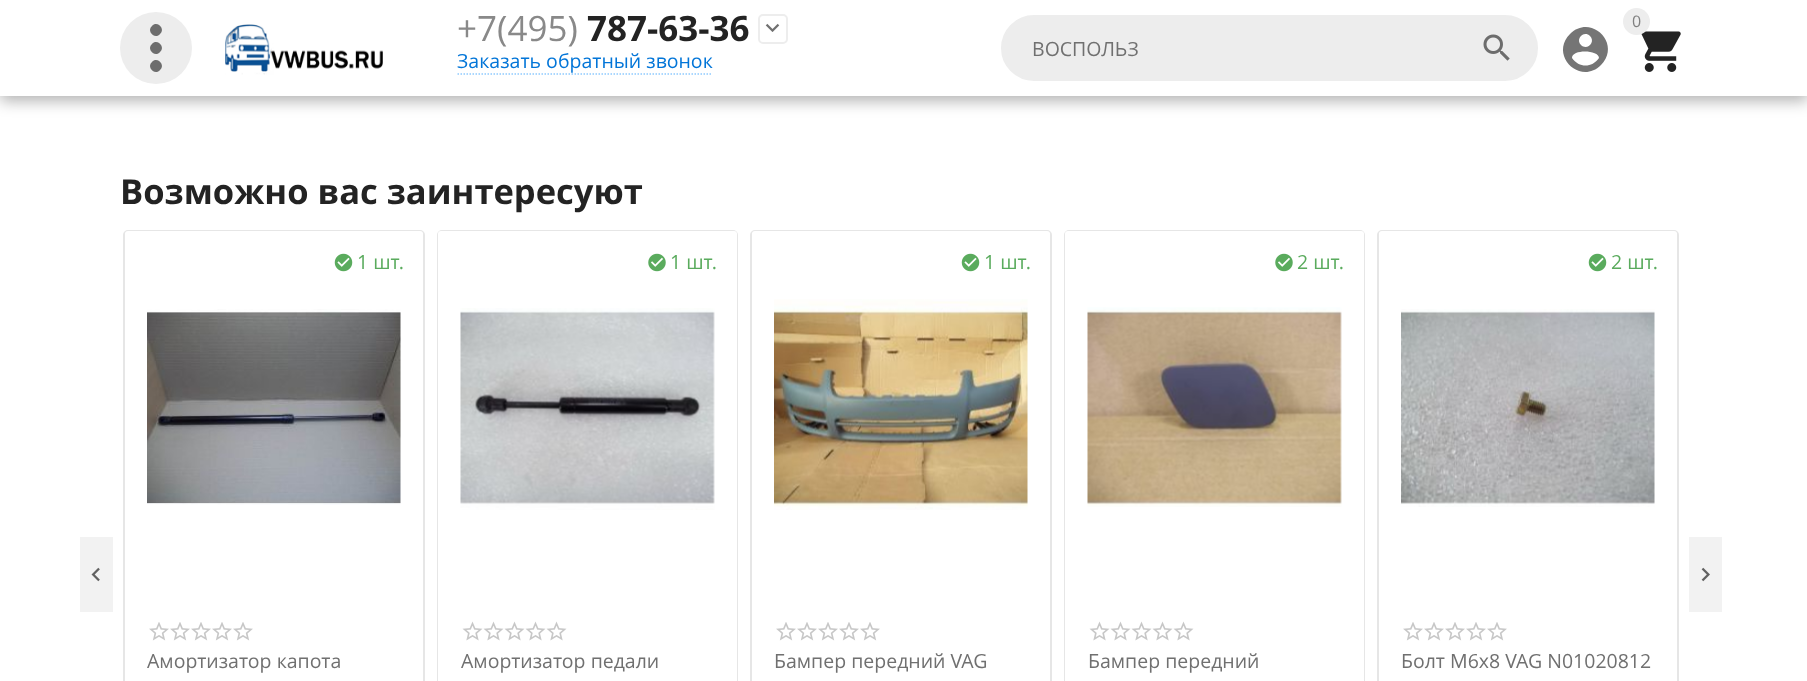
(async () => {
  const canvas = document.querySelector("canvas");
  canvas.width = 1807;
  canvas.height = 681;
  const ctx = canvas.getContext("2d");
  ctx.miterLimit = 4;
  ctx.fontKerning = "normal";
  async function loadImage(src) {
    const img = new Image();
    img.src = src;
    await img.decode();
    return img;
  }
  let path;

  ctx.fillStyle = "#ffffff";
  ctx.fillRect(0, 0, 1807, 681);
  ctx.fillStyle = "rgba(0, 0, 0, 0.3)";
  ctx.filter = "blur(7.5px)";
  ctx.beginPath();
  ctx.rect(0, 5, 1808, 96);
  ctx.fill();
  ctx.filter = "none";
  ctx.fillStyle = "#ffffff";
  ctx.fillRect(0, 0, 1807, 96);
  ctx.fillStyle = "#ededed";
  ctx.beginPath();
  ctx.arc(156, 48, 36, 0, Math.PI * 2);
  ctx.fill();
  ctx.fillStyle = "#6d6d6d";
  path = new Path2D("M152 62C157 56 166 65 160 70C155 76 146 67 152 62ZM152 44C157 38 166 47 160 52C155 58 146 49 152 44ZM160 34C155 40 146 31 152 26C157 20 166 29 160 34Z");
  ctx.fill(path);
  ctx.drawImage(await loadImage("img/1.png"), 225, 24, 158, 51);
  ctx.beginPath();
  ctx.roundRect(759, 15, 28, 28, 4);
  ctx.strokeStyle = "#ededed";
  ctx.lineWidth = 2;
  ctx.stroke();
  ctx.drawImage(await loadImage("img/2.png"), 765, 23, 15, 9);
  path = new Path2D("M457.5 74H712.5");
  ctx.strokeStyle = "#8fcafe";
  ctx.lineWidth = 1.5;
  ctx.setLineDash([1.5, 1.5]);
  ctx.stroke(path);
  ctx.drawImage(await loadImage("img/3.png"), 1641, 31, 40, 41);
  ctx.fillStyle = "#ededed";
  ctx.beginPath();
  ctx.arc(1636.5, 21.5, 13.5, 0, Math.PI * 2);
  ctx.fill();
  ctx.beginPath();
  ctx.roundRect(1002, 16, 535, 64, 32);
  ctx.fill();
  ctx.strokeStyle = "#ededed";
  ctx.lineWidth = 2;
  ctx.setLineDash([]);
  ctx.stroke();
  ctx.drawImage(await loadImage("img/4.png"), 1483, 34, 27, 27);
  ctx.fillStyle = "#757575";
  path = new Path2D("M1572 58C1579 68 1592 68 1599 58C1599 50 1572 49 1572 58ZM1590 36C1584 30 1575 39 1581 45C1587 51 1596 42 1590 36ZM1570 34C1591 13 1622 44 1601 65C1580 86 1549 55 1570 34Z");
  ctx.fill(path);
  ctx.beginPath();
  ctx.roundRect(124, 231, 300, 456, 4);
  ctx.strokeStyle = "#e6e6e6";
  ctx.stroke();
  ctx.fillStyle = "#ffffff";
  ctx.beginPath();
  ctx.roundRect(125, 231, 298, 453, 3);
  ctx.fill();
  ctx.drawImage(await loadImage("img/5.png"), 334, 253, 19, 19);
  ctx.drawImage(await loadImage("img/6.png"), 147, 309, 254, 196);
  ctx.drawImage(await loadImage("img/7.png"), 149, 622, 20, 19);
  ctx.drawImage(await loadImage("img/7.png"), 170, 622, 20, 19);
  ctx.drawImage(await loadImage("img/7.png"), 191, 622, 20, 19);
  ctx.drawImage(await loadImage("img/7.png"), 212, 622, 20, 19);
  ctx.drawImage(await loadImage("img/7.png"), 233, 622, 20, 19);
  ctx.beginPath();
  ctx.roundRect(438, 231, 299, 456, 4);
  ctx.stroke();
  ctx.beginPath();
  ctx.roundRect(438, 231, 299, 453, 3);
  ctx.fill();
  ctx.drawImage(await loadImage("img/8.png"), 648, 253, 18, 19);
  ctx.drawImage(await loadImage("img/9.png"), 460, 308, 255, 202);
  ctx.drawImage(await loadImage("img/10.png"), 462, 621, 21, 20);
  ctx.drawImage(await loadImage("img/10.png"), 483, 621, 21, 20);
  ctx.drawImage(await loadImage("img/10.png"), 504, 621, 21, 20);
  ctx.drawImage(await loadImage("img/10.png"), 525, 621, 21, 20);
  ctx.drawImage(await loadImage("img/10.png"), 546, 621, 21, 20);
  ctx.beginPath();
  ctx.roundRect(751, 231, 300, 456, 4);
  ctx.stroke();
  ctx.beginPath();
  ctx.roundRect(752, 231, 298, 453, 3);
  ctx.fill();
  ctx.drawImage(await loadImage("img/5.png"), 961, 253, 19, 19);
  ctx.drawImage(await loadImage("img/11.png"), 774, 299, 254, 211);
  ctx.drawImage(await loadImage("img/7.png"), 776, 622, 20, 19);
  ctx.drawImage(await loadImage("img/7.png"), 797, 622, 20, 19);
  ctx.drawImage(await loadImage("img/7.png"), 818, 622, 20, 19);
  ctx.drawImage(await loadImage("img/7.png"), 839, 622, 20, 19);
  ctx.drawImage(await loadImage("img/7.png"), 860, 622, 20, 19);
  ctx.beginPath();
  ctx.roundRect(1065, 231, 299, 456, 4);
  ctx.stroke();
  ctx.beginPath();
  ctx.roundRect(1065, 231, 299, 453, 3);
  ctx.fill();
  ctx.drawImage(await loadImage("img/8.png"), 1275, 253, 18, 19);
  ctx.drawImage(await loadImage("img/12.png"), 1087, 307, 255, 200);
  ctx.drawImage(await loadImage("img/10.png"), 1089, 621, 21, 20);
  ctx.drawImage(await loadImage("img/10.png"), 1110, 621, 21, 20);
  ctx.drawImage(await loadImage("img/10.png"), 1131, 621, 21, 20);
  ctx.drawImage(await loadImage("img/10.png"), 1152, 621, 21, 20);
  ctx.drawImage(await loadImage("img/10.png"), 1173, 621, 21, 20);
  ctx.beginPath();
  ctx.roundRect(1378, 231, 300, 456, 4);
  ctx.stroke();
  ctx.beginPath();
  ctx.roundRect(1379, 231, 298, 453, 3);
  ctx.fill();
  ctx.drawImage(await loadImage("img/5.png"), 1588, 253, 19, 19);
  ctx.drawImage(await loadImage("img/13.png"), 1401, 309, 254, 198);
  ctx.drawImage(await loadImage("img/7.png"), 1403, 622, 20, 19);
  ctx.drawImage(await loadImage("img/7.png"), 1424, 622, 20, 19);
  ctx.drawImage(await loadImage("img/7.png"), 1445, 622, 20, 19);
  ctx.drawImage(await loadImage("img/7.png"), 1466, 622, 20, 19);
  ctx.drawImage(await loadImage("img/7.png"), 1487, 622, 20, 19);
  ctx.fillStyle = "#f2f2f2";
  ctx.fillRect(80, 537, 33, 75);
  ctx.drawImage(await loadImage("img/14.png"), 91, 567, 9, 15);
  ctx.fillRect(1689, 537, 33, 75);
  ctx.drawImage(await loadImage("img/15.png"), 1701, 567, 9, 15);
  ctx.font = "35px Open Sans";
  ctx.fillStyle = "#898989";
  ctx.fillText("+7(495)", 457, 41);
  ctx.font = "bold 35px Open Sans";
  ctx.fillStyle = "#232323";
  ctx.fillText("787-63-36", 587, 41);
  ctx.font = "19.5px Open Sans";
  ctx.fillStyle = "#0275d8";
  ctx.fillText("Заказать обратный звонок", 457, 68);
  ctx.font = "16px Open Sans";
  ctx.fillStyle = "#808080";
  ctx.fillText("0", 1632, 27);
  ctx.font = "19.5px Open Sans";
  ctx.fillStyle = "#707070";
  ctx.fillText("ВОСПОЛЬЗ", 1032, 56);
  ctx.font = "bold 34.5px Open Sans";
  ctx.fillStyle = "#232323";
  ctx.fillText("Возможно вас заинтересуют", 120, 204);
  ctx.font = "19.5px Open Sans";
  ctx.fillStyle = "#5aab5d";
  ctx.fillText("1 шт.", 357, 269);
  ctx.fillStyle = "#707070";
  ctx.fillText("Амортизатор капота", 147, 668);
  ctx.fillStyle = "#5aab5d";
  ctx.fillText("1 шт.", 670, 269);
  ctx.fillStyle = "#707070";
  ctx.fillText("Амортизатор педали", 461, 668);
  ctx.fillStyle = "#5aab5d";
  ctx.fillText("1 шт.", 984, 269);
  ctx.fillStyle = "#707070";
  ctx.fillText("Бампер передний VAG", 774, 668);
  ctx.fillStyle = "#5aab5d";
  ctx.fillText("2 шт.", 1297, 269);
  ctx.fillStyle = "#707070";
  ctx.fillText("Бампер передний", 1088, 668);
  ctx.fillStyle = "#5aab5d";
  ctx.fillText("2 шт.", 1611, 269);
  ctx.fillStyle = "#707070";
  ctx.fillText("Болт М6х8 VAG N01020812", 1401, 668);
})();
